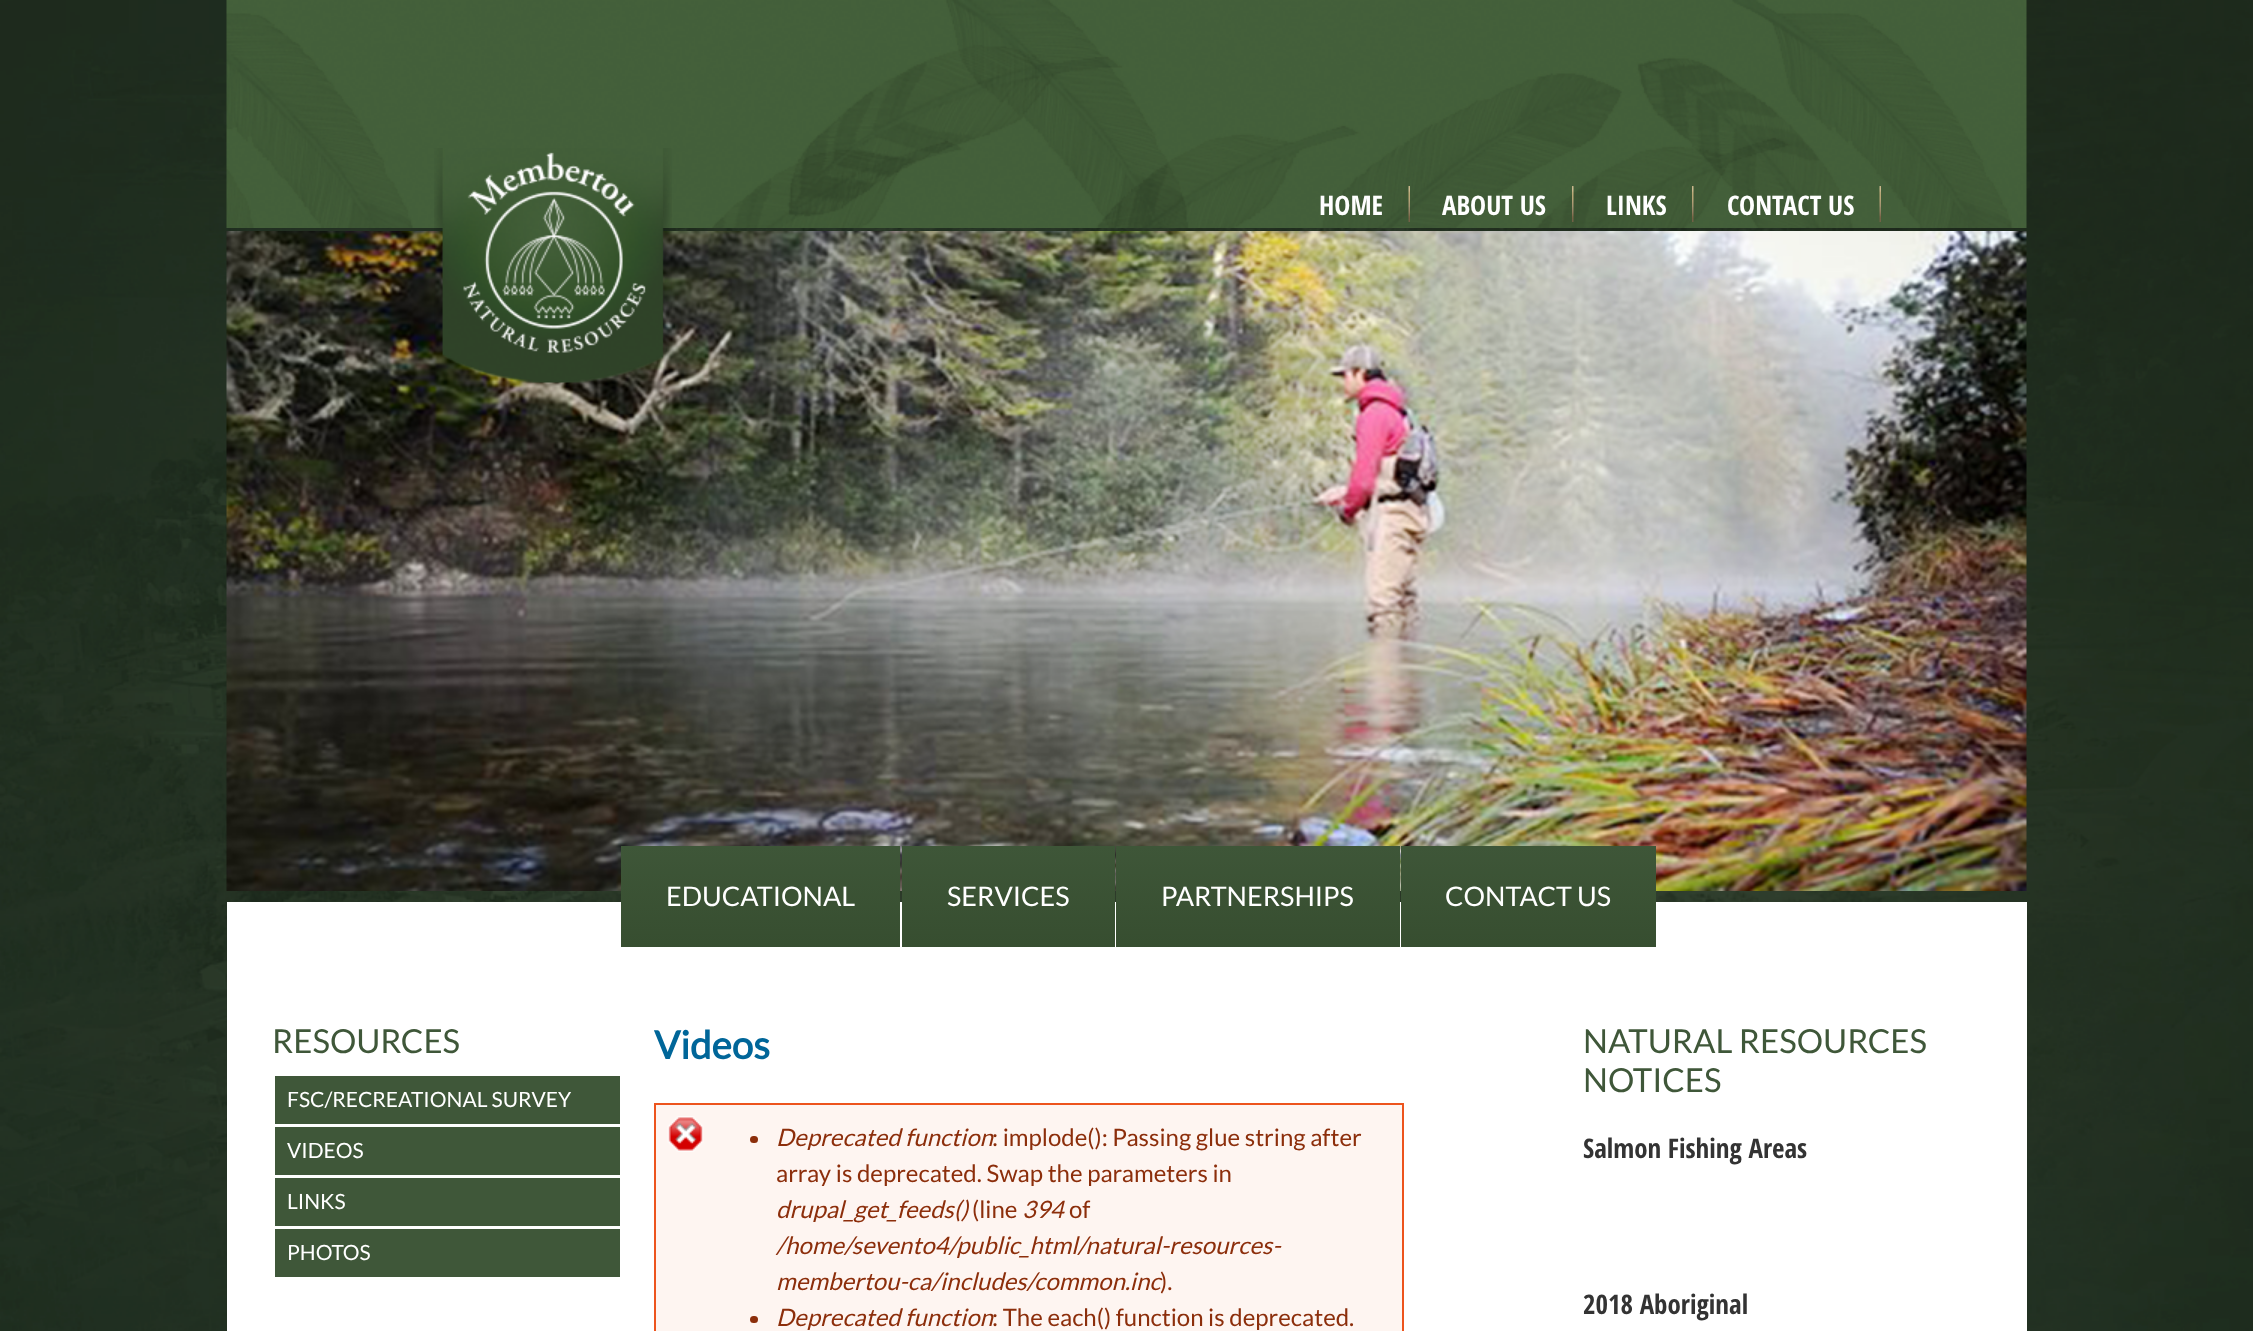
(async () => {
  const canvas = document.querySelector("canvas");
  canvas.width = 2253;
  canvas.height = 1331;
  const ctx = canvas.getContext("2d");
  ctx.miterLimit = 4;
  ctx.fontKerning = "normal";
  async function loadImage(src) {
    const img = new Image();
    img.src = src;
    await img.decode();
    return img;
  }
  let gradient;

  ctx.fillStyle = "#ffffff";
  ctx.fillRect(0, 0, 2253, 1331);
  ctx.drawImage(await loadImage("img/1.png"), 0, 0, 2253, 1331);
  ctx.drawImage(await loadImage("img/2.png"), 226, 0, 1801, 228);
  ctx.drawImage(await loadImage("img/8.png"), 226, 231, 1801, 660);
  ctx.drawImage(await loadImage("img/3.png"), 434, 148, 238, 235);
  ctx.drawImage(await loadImage("img/4.png"), 1408, 186, 2, 36);
  ctx.drawImage(await loadImage("img/5.png"), 1572, 186, 2, 36);
  ctx.drawImage(await loadImage("img/6.png"), 1692, 186, 2, 36);
  ctx.drawImage(await loadImage("img/7.png"), 1879, 186, 2, 36);
  ctx.fillRect(227, 902, 1800, 429);
  gradient = ctx.createLinearGradient(761, 834, 761, 957);
  gradient.addColorStop(0, "#3f5739");
  gradient.addColorStop(1, "#364d2f");
  ctx.fillStyle = gradient;
  ctx.fillRect(621, 846, 279, 101);
  gradient = ctx.createLinearGradient(1008, 834, 1008, 957);
  gradient.addColorStop(0, "#3f5739");
  gradient.addColorStop(1, "#364d2f");
  ctx.fillStyle = gradient;
  ctx.fillRect(902, 846, 213, 101);
  gradient = ctx.createLinearGradient(1258, 834, 1258, 957);
  gradient.addColorStop(0, "#3f5739");
  gradient.addColorStop(1, "#364d2f");
  ctx.fillStyle = gradient;
  ctx.fillRect(1116, 846, 284, 101);
  gradient = ctx.createLinearGradient(1529, 834, 1529, 957);
  gradient.addColorStop(0, "#3f5739");
  gradient.addColorStop(1, "#364d2f");
  ctx.fillStyle = gradient;
  ctx.fillRect(1401, 846, 255, 101);
  for (const [x, y, w, h, color] of [
    [275, 1076, 345, 48, "#3f5739"],
    [275, 1127, 345, 48, "#3f5739"],
    [275, 1178, 345, 48, "#3f5739"],
    [275, 1229, 345, 48, "#3f5739"],
    [656, 1105, 746, 226, "#fef5f1"],
  ]) {
    ctx.fillStyle = color;
    ctx.fillRect(x, y, w, h);
  }
  ctx.drawImage(await loadImage("img/9.png"), 667, 1116, 37, 36);
  ctx.strokeStyle = "#ed541d";
  ctx.lineWidth = 2;
  ctx.strokeRect(655, 1104, 748, 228);
  ctx.fillStyle = "#8c2e0b";
  ctx.beginPath();
  ctx.roundRect(750, 1136, 8, 7, 3.5);
  ctx.fill();
  ctx.beginPath();
  ctx.roundRect(750, 1316, 8, 7, 3.5);
  ctx.fill();
  ctx.font = "bold 27px Open Sans Condensed";
  ctx.fillStyle = "#ffffff";
  for (const [text, x, y] of [
    ["HOME", 1319, 215],
    ["ABOUT US", 1442, 215],
    ["LINKS", 1606, 215],
    ["CONTACT US", 1727, 215],
  ]) {
    ctx.fillText(text, x, y);
  }
  ctx.font = "27px Lato";
  for (const [text, x, y] of [
    ["EDUCATIONAL", 666, 906],
    ["SERVICES", 947, 906],
    ["PARTNERSHIPS", 1161, 906],
    ["CONTACT US", 1445, 906],
  ]) {
    ctx.fillText(text, x, y);
  }
  ctx.font = "33px Lato";
  ctx.fillStyle = "#3f5739";
  ctx.fillText("RESOURCES", 272, 1053);
  ctx.font = "21px Lato";
  ctx.fillStyle = "#ffffff";
  for (const [text, x, y] of [
    ["FSC/RECREATIONAL SURVEY", 287, 1107],
    ["VIDEOS", 287, 1158],
    ["LINKS", 287, 1209],
    ["PHOTOS", 287, 1260],
  ]) {
    ctx.fillText(text, x, y);
  }
  ctx.font = "33px Lato";
  ctx.fillStyle = "#3f5739";
  ctx.fillText("NATURAL RESOURCES", 1583, 1053);
  ctx.fillText("NOTICES", 1583, 1092);
  ctx.font = "bold 27px Open Sans Condensed";
  ctx.fillStyle = "#333333";
  ctx.fillText("Salmon Fishing Areas", 1583, 1158);
  ctx.fillText("2018 Aboriginal", 1583, 1314);
  ctx.font = "bold 38.5px Lato";
  ctx.fillStyle = "#006699";
  ctx.fillText("Videos", 654, 1059);
  ctx.font = "italic 24px Lato";
  ctx.fillStyle = "#8c2e0b";
  ctx.fillText("Deprecated function", 776, 1146);
  ctx.font = "24px Lato";
  ctx.fillText(": implode(): Passing glue string after", 992, 1146);
  ctx.fillText("array is deprecated. Swap the parameters in", 776, 1182);
  ctx.font = "italic 24px Lato";
  ctx.fillText("drupal_get_feeds()", 776, 1218);
  ctx.font = "24px Lato";
  ctx.fillText("(line", 972, 1218);
  ctx.font = "italic 24px Lato";
  ctx.fillText("394", 1022, 1218);
  ctx.font = "24px Lato";
  ctx.fillText("of", 1069, 1218);
  ctx.font = "italic 24px Lato";
  ctx.fillText("/home/sevento4/public_html/natural-resources-", 776, 1254);
  ctx.fillText("membertou-ca/includes/common.inc", 776, 1290);
  ctx.font = "24px Lato";
  ctx.fillText(").", 1160, 1290);
  ctx.font = "italic 24px Lato";
  ctx.fillText("Deprecated function", 776, 1326);
  ctx.font = "24px Lato";
  ctx.fillText(": The each() function is deprecated.", 992, 1326);
})();
